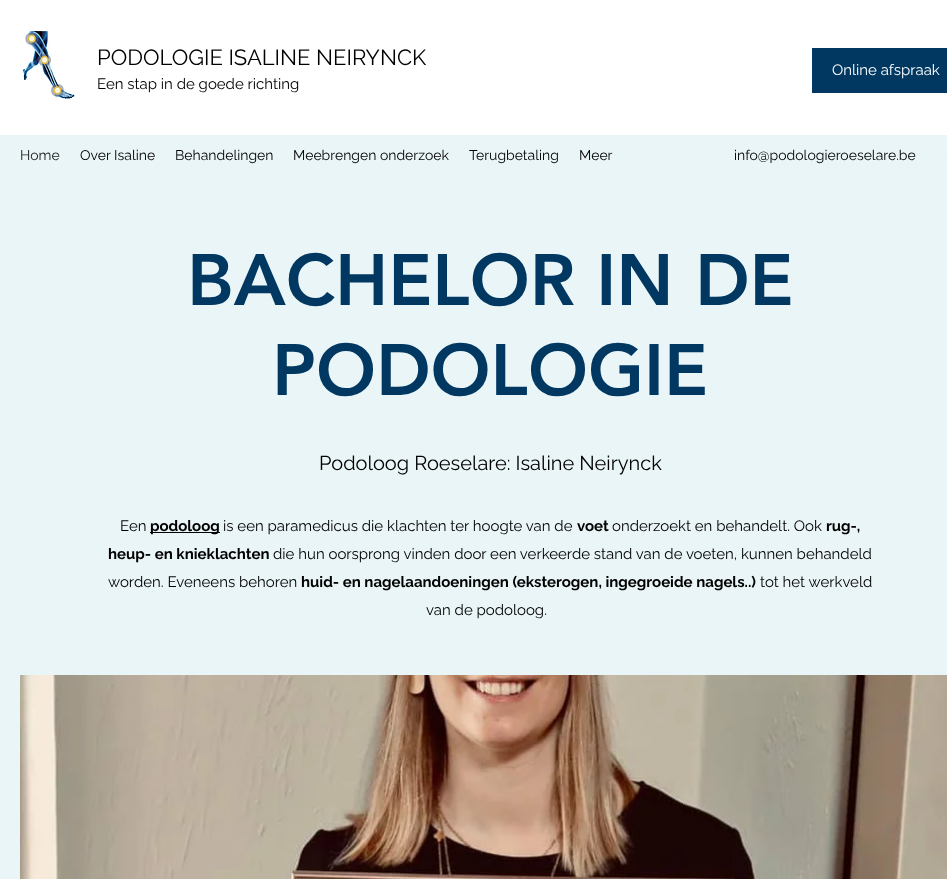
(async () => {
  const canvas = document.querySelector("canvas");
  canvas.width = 947;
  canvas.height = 879;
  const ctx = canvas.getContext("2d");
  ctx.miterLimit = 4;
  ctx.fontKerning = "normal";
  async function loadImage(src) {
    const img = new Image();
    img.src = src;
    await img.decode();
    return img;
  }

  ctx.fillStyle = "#ffffff";
  ctx.fillRect(0, 0, 947, 879);
  ctx.drawImage(await loadImage("img/1.png"), 23, 31, 52, 68);
  for (const [x, y, w, h, color] of [
    [812, 48, 135, 45, "#003862"],
    [0, 135, 947, 744, "#eaf5f7"],
    [946, 154, 1, 1, "#e5f0f2"],
    [150, 532, 70, 1, "#000000"],
  ]) {
    ctx.fillStyle = color;
    ctx.fillRect(x, y, w, h);
  }
  ctx.drawImage(await loadImage("img/2.png"), 20, 675, 927, 204);
  ctx.font = "22px Raleway";
  ctx.fillText("PODOLOGIE ISALINE NEIRYNCK", 97, 65);
  ctx.font = "15px Raleway";
  ctx.fillText("Een stap in de goede richting", 97, 89);
  ctx.fillStyle = "#ffffff";
  ctx.fillText("Online afspraak", 832, 75);
  ctx.font = "14px Raleway";
  ctx.fillStyle = "#191919";
  ctx.fillText("Home", 20, 160);
  ctx.fillStyle = "#000000";
  for (const [text, x, y] of [
    ["Over Isaline", 80, 160],
    ["Behandelingen", 175, 160],
    ["Meebrengen onderzoek", 293, 160],
    ["Terugbetaling", 469, 160],
    ["Meer", 579, 160],
    ["info@podologieroeselare.be", 734, 160],
  ]) {
    ctx.fillText(text, x, y);
  }
  ctx.font = "900 72px 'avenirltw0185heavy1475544'";
  ctx.fillStyle = "#003862";
  ctx.fillText("BACHELOR IN DE", 187, 305);
  ctx.fillText("PODOLOGIE", 272, 395);
  ctx.font = "20px Raleway";
  ctx.fillStyle = "#000000";
  ctx.fillText("Podoloog Roeselare: Isaline Neirynck", 319, 470);
  ctx.font = "15px Raleway";
  ctx.fillText("Een", 120, 531);
  ctx.font = "bold 15px Raleway";
  ctx.fillText("podoloog", 150, 531);
  ctx.font = "15px Raleway";
  ctx.fillText("is een paramedicus die klachten ter hoogte van de", 223, 531);
  ctx.font = "bold 15px Raleway";
  ctx.fillText("voet", 577, 531);
  ctx.font = "15px Raleway";
  ctx.fillText("onderzoekt en behandelt. Ook", 612, 531);
  ctx.font = "bold 15px Raleway";
  ctx.fillText("rug-,", 826, 531);
  ctx.fillText("heup- en knieklachten", 108, 559);
  ctx.font = "15px Raleway";
  ctx.fillText("die hun oorsprong vinden door een verkeerde stand van de voeten, kunnen behandeld", 273, 559);
  ctx.fillText("worden. Eveneens behoren", 108, 587);
  ctx.font = "bold 15px Raleway";
  ctx.fillText("huid- en nagelaandoeningen (eksterogen, ingegroeide nagels..)", 301, 587);
  ctx.font = "15px Raleway";
  ctx.fillText("tot het werkveld", 760, 587);
  ctx.fillText("van de podoloog.", 426, 615);
})();
